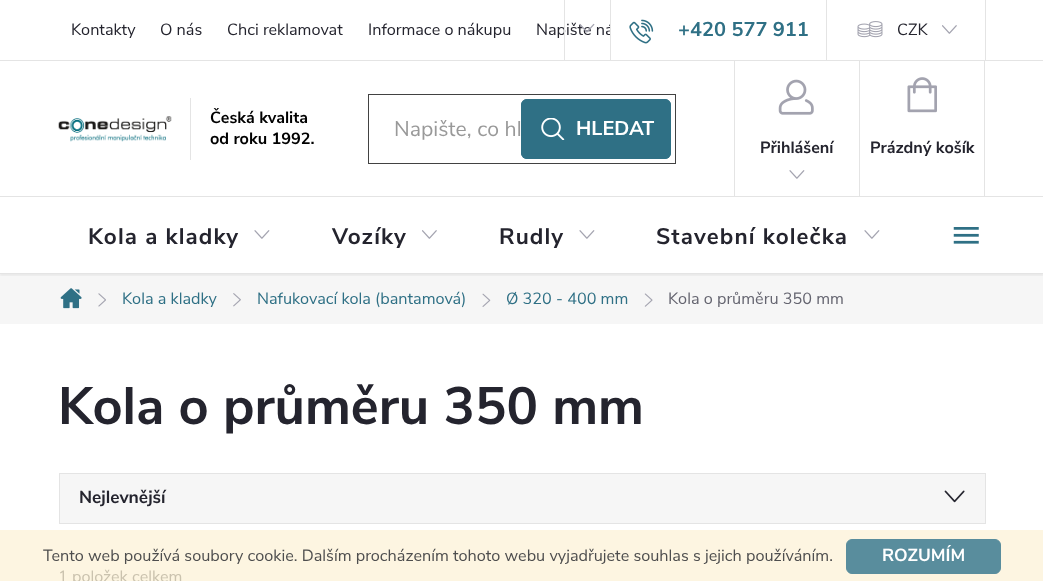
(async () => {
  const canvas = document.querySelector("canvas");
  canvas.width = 1043;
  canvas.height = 581;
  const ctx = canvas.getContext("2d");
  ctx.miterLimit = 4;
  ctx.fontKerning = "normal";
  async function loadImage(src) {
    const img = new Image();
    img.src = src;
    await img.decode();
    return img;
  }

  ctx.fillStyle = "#ffffff";
  ctx.fillRect(0, 0, 1043, 581);
  ctx.fillStyle = "#fdf5e1";
  ctx.fillRect(0, 530, 1043, 51);
  ctx.fillStyle = "#e4e4e4";
  ctx.fillRect(0, 60, 1043, 1);
  ctx.drawImage(await loadImage("img/2.png"), 629, 19, 25, 25);
  ctx.fillRect(985, 0, 1, 60);
  ctx.fillRect(826, 0, 1, 60);
  ctx.drawImage(await loadImage("img/3.png"), 857, 21, 26, 17);
  ctx.drawImage(await loadImage("img/4.png"), 942, 25, 15, 9);
  ctx.drawImage(await loadImage("img/5.png"), 58, 116, 114, 26);
  ctx.fillRect(190, 98, 1, 62);
  ctx.strokeStyle = "#424242";
  ctx.strokeRect(368.5, 94.5, 307, 69);
  ctx.fillStyle = "#2f7085";
  ctx.beginPath();
  ctx.roundRect(521, 99, 150, 60, 6);
  ctx.fill();
  ctx.drawImage(await loadImage("img/6.png"), 541, 118, 24, 22);
  ctx.beginPath();
  ctx.roundRect(521.5, 99.5, 149, 59, 5.5);
  ctx.strokeStyle = "#2f7085";
  ctx.stroke();
  ctx.fillStyle = "#e4e4e4";
  ctx.fillRect(734, 61, 1, 135);
  ctx.drawImage(await loadImage("img/7.png"), 778, 79, 36, 36);
  ctx.drawImage(await loadImage("img/8.png"), 789, 170, 16, 9);
  ctx.fillRect(984, 61, 1, 135);
  ctx.fillRect(859, 61, 1, 135);
  ctx.drawImage(await loadImage("img/9.png"), 907, 77, 30, 36);
  ctx.fillStyle = "#f6f6f6";
  ctx.fillRect(0, 274, 1043, 50);
  ctx.save();
  ctx.beginPath();
  ctx.rect(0, 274, 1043, 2);
  ctx.clip();
  ctx.fillStyle = "rgba(0, 0, 0, 0.05)";
  ctx.filter = "blur(1px)";
  ctx.beginPath();
  ctx.rect(0, 199, 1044, 77);
  ctx.fill();
  ctx.filter = "none";
  ctx.restore();
  ctx.drawImage(await loadImage("img/8.png"), 254, 230, 16, 9);
  ctx.drawImage(await loadImage("img/4.png"), 422, 230, 15, 9);
  ctx.drawImage(await loadImage("img/8.png"), 579, 230, 16, 9);
  ctx.drawImage(await loadImage("img/8.png"), 864, 230, 16, 9);
  ctx.drawImage(await loadImage("img/10.png"), 953, 227, 26, 17);
  ctx.fillStyle = "#e4e4e4";
  ctx.fillRect(0, 196, 1043, 1);
  ctx.fillRect(0, 273, 1043, 1);
  ctx.drawImage(await loadImage("img/11.png"), 60, 288, 22, 21);
  ctx.drawImage(await loadImage("img/12.png"), 98, 293, 8, 14);
  ctx.drawImage(await loadImage("img/13.png"), 233, 293, 8, 14);
  ctx.drawImage(await loadImage("img/14.png"), 482, 293, 9, 14);
  ctx.drawImage(await loadImage("img/15.png"), 644, 293, 9, 14);
  for (const [x, y, w, h, color] of [
    [59, 473, 927, 1, "#e4e4e4"],
    [59, 473, 1, 51, "#e4e4e4"],
    [60, 474, 925, 49, "#f6f6f6"],
    [985, 474, 1, 50, "#e4e4e4"],
    [60, 523, 926, 1, "#e4e4e4"],
  ]) {
    ctx.fillStyle = color;
    ctx.fillRect(x, y, w, h);
  }
  ctx.drawImage(await loadImage("img/16.png"), 944, 490, 21, 13);
  ctx.fillStyle = "#598d9d";
  ctx.beginPath();
  ctx.roundRect(846.5, 539.5, 154, 34, 5.5);
  ctx.fill();
  ctx.strokeStyle = "#598d9d";
  ctx.stroke();
  ctx.font = "16.25px Nunito Sans";
  ctx.fillStyle = "#24242e";
  for (const [text, x, y] of [
    ["Kontakty", 71, 35],
    ["O nás", 160, 35],
    ["Chci reklamovat", 227, 35],
    ["Informace o nákupu", 368, 35],
  ]) {
    ctx.fillText(text, x, y);
  }
  ctx.save();
  ctx.beginPath();
  ctx.rect(59, 0, 552, 60);
  ctx.clip();
  ctx.fillText("Napište ná", 536, 35);
  ctx.restore();
  ctx.drawImage(await loadImage("img/1.png"), 579, 23, 16, 10);
  ctx.fillStyle = "#e4e4e4";
  ctx.fillRect(564, 0, 1, 60);
  ctx.fillRect(610, 0, 1, 60);
  ctx.font = "bold 20px Nunito Sans";
  ctx.fillStyle = "#2f7085";
  ctx.fillText("+420 577 911", 678, 36);
  ctx.font = "16.25px Nunito Sans";
  ctx.fillStyle = "#24242e";
  ctx.fillText("CZK", 897, 35);
  ctx.font = "bold 16.25px Nunito Sans";
  ctx.fillStyle = "#000000";
  ctx.fillText("Česká kvalita", 210, 123);
  ctx.fillText("od roku 1992.", 210, 144);
  ctx.font = "21.25px Nunito Sans";
  ctx.fillStyle = "#999999";
  ctx.fillText("Napište, co hl", 394, 136);
  ctx.font = "bold 20px Nunito Sans";
  ctx.fillStyle = "#ffffff";
  ctx.fillText("HLEDAT", 576, 135);
  ctx.font = "bold 16.25px Nunito Sans";
  ctx.fillStyle = "#24242e";
  ctx.fillText("Přihlášení", 760, 153);
  ctx.fillText("Prázdný košík", 870, 153);
  ctx.letterSpacing = "1.1px";
  ctx.font = "bold 22.5px Nunito Sans";
  for (const [text, x, y] of [
    ["Kola a kladky", 88, 244],
    ["Vozíky", 332, 244],
    ["Rudly", 499, 244],
    ["Stavební kolečka", 656, 244],
  ]) {
    ctx.fillText(text, x, y);
  }
  ctx.letterSpacing = "0px";
  ctx.font = "16.25px Nunito Sans";
  ctx.fillStyle = "#2f7085";
  for (const [text, x, y] of [
    ["Kola a kladky", 122, 304],
    ["Nafukovací kola (bantamová)", 257, 304],
    ["Ø 320 - 400 mm", 506, 304],
  ]) {
    ctx.fillText(text, x, y);
  }
  ctx.fillStyle = "#656570";
  ctx.fillText("Kola o průměru 350 mm", 668, 304);
  ctx.font = "bold 52.5px Nunito Sans";
  ctx.fillStyle = "#24242e";
  ctx.fillText("Kola o průměru 350 mm", 58, 424);
  ctx.font = "bold 17.5px Nunito Sans";
  ctx.fillText("Nejlevnější", 79, 503);
  ctx.font = "16.25px Nunito Sans";
  ctx.fillStyle = "#cac2ae";
  ctx.fillText("1 položek celkem", 58, 582);
  ctx.fillStyle = "#4e4e4e";
  ctx.fillText("Tento web používá soubory cookie. Dalším procházením tohoto webu vyjadřujete souhlas s jejich používáním.", 43, 561);
  ctx.font = "bold 17.5px Nunito Sans";
  ctx.fillStyle = "#ffffff";
  ctx.fillText("ROZUMÍM", 882, 561);
})();
